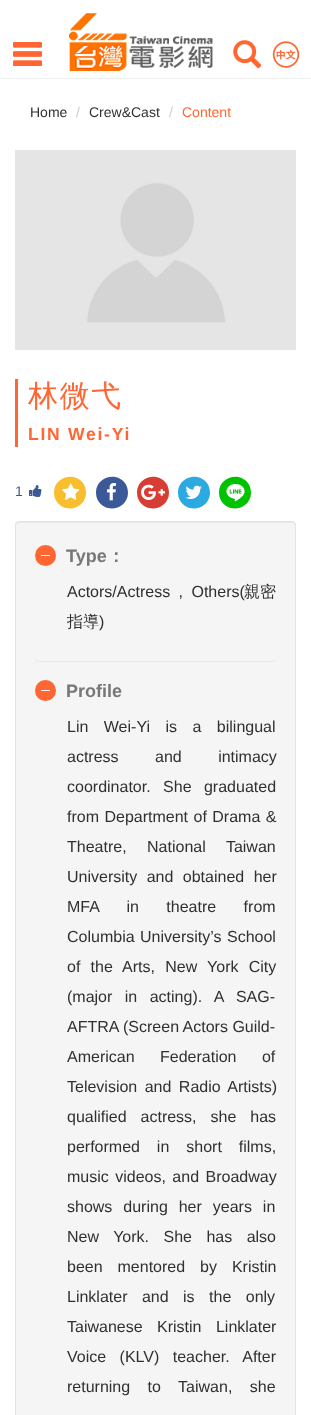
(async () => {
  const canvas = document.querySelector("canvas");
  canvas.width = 311;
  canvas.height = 1415;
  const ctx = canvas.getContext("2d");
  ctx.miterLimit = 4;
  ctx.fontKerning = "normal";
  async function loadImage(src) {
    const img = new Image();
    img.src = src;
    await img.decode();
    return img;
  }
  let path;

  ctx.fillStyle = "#ffffff";
  ctx.fillRect(0, 0, 311, 1415);
  ctx.drawImage(await loadImage("img/1.png"), 13, 42, 29, 24);
  ctx.drawImage(await loadImage("img/2.png"), 69, 13, 144, 58);
  ctx.drawImage(await loadImage("img/3.png"), 233, 40, 29, 29);
  ctx.drawImage(await loadImage("img/4.png"), 272, 41, 28, 27);
  ctx.fillStyle = "#eeeeee";
  ctx.fillRect(0, 78, 311, 1);
  ctx.drawImage(await loadImage("img/5.png"), 15, 150, 281, 200);
  ctx.fillStyle = "#ff6633";
  ctx.fillRect(15, 379, 3, 68);
  ctx.drawImage(await loadImage("img/6.png"), 29, 485, 13, 12);
  ctx.fillStyle = "#f9be2d";
  path = new Path2D("M84 484.5C85.5 487.5 86 490.5 86 493.5C85 509.5 64 514 56 500.5C54.5 498 54 495 54 491.5C55 476 76 471 84 484.5Z");
  ctx.fill(path);
  ctx.drawImage(await loadImage("img/7.png"), 62, 483, 18, 17);
  ctx.fillStyle = "#3b5998";
  path = new Path2D("M126 484.5C127.5 487.5 128 490.5 128 493.5C127 509.5 106 514 98 500.5C96.5 498 96 495 96 491.5C97 476 118 471 126 484.5Z");
  ctx.fill(path);
  ctx.drawImage(await loadImage("img/8.png"), 107, 483, 9, 18);
  ctx.fillStyle = "#d73d32";
  path = new Path2D("M167 484.5C168.5 487.5 169 490.5 169 493.5C168 509.5 147 514 139 500.5C137.5 498 137 495 137 491.5C138 476 159 471 167 484.5Z");
  ctx.fill(path);
  ctx.drawImage(await loadImage("img/9.png"), 141, 484, 24, 16);
  ctx.fillStyle = "#2ba9e1";
  path = new Path2D("M208 484.5C209.5 487.5 210 490.5 210 493.5C209 509.5 188 514 180 500.5C178.5 498 178 495 178 491.5C179 476 200 471 208 484.5Z");
  ctx.fill(path);
  ctx.drawImage(await loadImage("img/10.png"), 185, 485, 17, 14);
  ctx.fillStyle = "#00c300";
  path = new Path2D("M249 484.5C250.5 487.5 251 490.5 251 493.5C250 509.5 229 514 221 500.5C219.5 498 219 495 219 491.5C220 476 241 471 249 484.5Z");
  ctx.fill(path);
  ctx.drawImage(await loadImage("img/11.png"), 226, 484, 19, 18);
  ctx.fillStyle = "#f5f5f5";
  ctx.beginPath();
  ctx.roundRect(15, 521, 281, 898, 4);
  ctx.fill();
  ctx.fillStyle = "#e9e9e9";
  path = new Path2D("M19 523H292C294 523 295 524 295 526V525C295 523 294 522 292 522H19C17 522 16 523 16 525V526C16 524 17 523 19 523Z");
  ctx.fill(path);
  ctx.beginPath();
  ctx.roundRect(15.5, 521.5, 280, 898, 3.5);
  ctx.strokeStyle = "#e3e3e3";
  ctx.stroke();
  ctx.save();
  path = new Path2D("M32 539H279V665H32ZM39 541H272C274 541 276 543 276 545V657C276 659 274 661 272 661H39C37 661 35 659 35 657V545C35 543 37 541 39 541Z");
  ctx.clip(path, "evenodd");
  ctx.fillStyle = "rgba(0, 0, 0, 0.05)";
  ctx.filter = "blur(0.5px)";
  ctx.beginPath();
  ctx.roundRect(35, 542, 241, 120, 4);
  ctx.fill();
  ctx.filter = "none";
  ctx.restore();
  ctx.fillStyle = "#ff6633";
  ctx.beginPath();
  ctx.arc(45.5, 555.5, 10.5, 0, Math.PI * 2);
  ctx.fill();
  ctx.fillStyle = "#ffffff";
  ctx.fillRect(41, 555, 9, 1);
  ctx.fillStyle = "#ff6633";
  ctx.beginPath();
  ctx.arc(45.5, 690.5, 10.5, 0, Math.PI * 2);
  ctx.fill();
  ctx.fillStyle = "#ffffff";
  ctx.fillRect(41, 690, 9, 1);
  ctx.font = "14px Liberation Sans";
  ctx.fillStyle = "#303030";
  ctx.fillText("Home", 30, 117);
  ctx.fillStyle = "#cccccc";
  ctx.fillText("/", 76, 117);
  ctx.fillStyle = "#303030";
  ctx.fillText("Crew&Cast", 89, 117);
  ctx.fillStyle = "#cccccc";
  ctx.fillText("/", 169, 117);
  ctx.fillStyle = "#ff6633";
  ctx.fillText("Content", 182, 117);
  ctx.letterSpacing = "1.75px";
  ctx.font = "500 30px WenQuanYi Zen Hei";
  ctx.fillText("林微弋", 28, 406);
  ctx.font = "bold 17.5px Liberation Sans";
  ctx.fillText("LIN Wei-Yi", 28, 440);
  ctx.letterSpacing = "0px";
  ctx.font = "14px Liberation Sans";
  ctx.fillStyle = "#3b5899";
  ctx.fillText("1", 15, 496);
  ctx.font = "bold 18px Liberation Sans";
  ctx.fillStyle = "#777777";
  ctx.fillText("Type", 66, 562);
  ctx.font = "bold 18px WenQuanYi Zen Hei";
  ctx.fillText("：", 107, 562);
  ctx.wordSpacing = "4px";
  ctx.font = "16px Liberation Sans";
  ctx.fillStyle = "#303030";
  ctx.fillText("Actors/Actress , Others(", 67, 597);
  ctx.wordSpacing = "0px";
  ctx.font = "500 16px WenQuanYi Zen Hei";
  ctx.fillText("親密", 244, 597);
  ctx.fillText("指導", 67, 627);
  ctx.font = "16px Liberation Sans";
  ctx.fillText(")", 99, 627);
  ctx.font = "bold 18px Liberation Sans";
  ctx.fillStyle = "#777777";
  ctx.fillText("Profile", 66, 697);
  ctx.wordSpacing = "11px";
  ctx.font = "16px Liberation Sans";
  ctx.fillStyle = "#303030";
  ctx.fillText("Lin Wei-Yi is a bilingual", 67, 732);
  ctx.wordSpacing = "32px";
  ctx.fillText("actress and intimacy", 67, 762);
  ctx.wordSpacing = "8px";
  ctx.fillText("coordinator. She graduated", 67, 792);
  ctx.wordSpacing = "1px";
  ctx.fillText("from Department of Drama &", 67, 822);
  ctx.wordSpacing = "16px";
  ctx.fillText("Theatre, National Taiwan", 67, 852);
  ctx.wordSpacing = "5px";
  ctx.fillText("University and obtained her", 67, 882);
  ctx.wordSpacing = "23px";
  ctx.fillText("MFA in theatre from", 67, 912);
  ctx.wordSpacing = "1px";
  ctx.fillText("Columbia University’s School", 67, 942);
  ctx.wordSpacing = "5.75px";
  ctx.fillText("of the Arts, New York City", 67, 972);
  ctx.wordSpacing = "8px";
  ctx.fillText("(major in acting). A SAG-", 67, 1002);
  ctx.wordSpacing = "0px";
  ctx.fillText("AFTRA (Screen Actors Guild-", 67, 1032);
  ctx.wordSpacing = "21px";
  ctx.fillText("American Federation of", 67, 1062);
  ctx.wordSpacing = "3px";
  ctx.fillText("Television and Radio Artists)", 67, 1092);
  ctx.wordSpacing = "9.5px";
  ctx.fillText("qualified actress, she has", 67, 1122);
  ctx.wordSpacing = "12.5px";
  ctx.fillText("performed in short films,", 67, 1152);
  ctx.wordSpacing = "2px";
  ctx.fillText("music videos, and Broadway", 67, 1182);
  ctx.wordSpacing = "6.5px";
  ctx.fillText("shows during her years in", 67, 1212);
  ctx.wordSpacing = "10px";
  ctx.fillText("New York. She has also", 67, 1242);
  ctx.wordSpacing = "10.5px";
  ctx.fillText("been mentored by Kristin", 67, 1272);
  ctx.wordSpacing = "10px";
  ctx.fillText("Linklater and is the only", 67, 1302);
  ctx.fillText("Taiwanese Kristin Linklater", 67, 1332);
  ctx.wordSpacing = "9px";
  ctx.fillText("Voice (KLV) teacher. After", 67, 1362);
  ctx.wordSpacing = "13px";
  ctx.fillText("returning to Taiwan, she", 67, 1392);
})();
